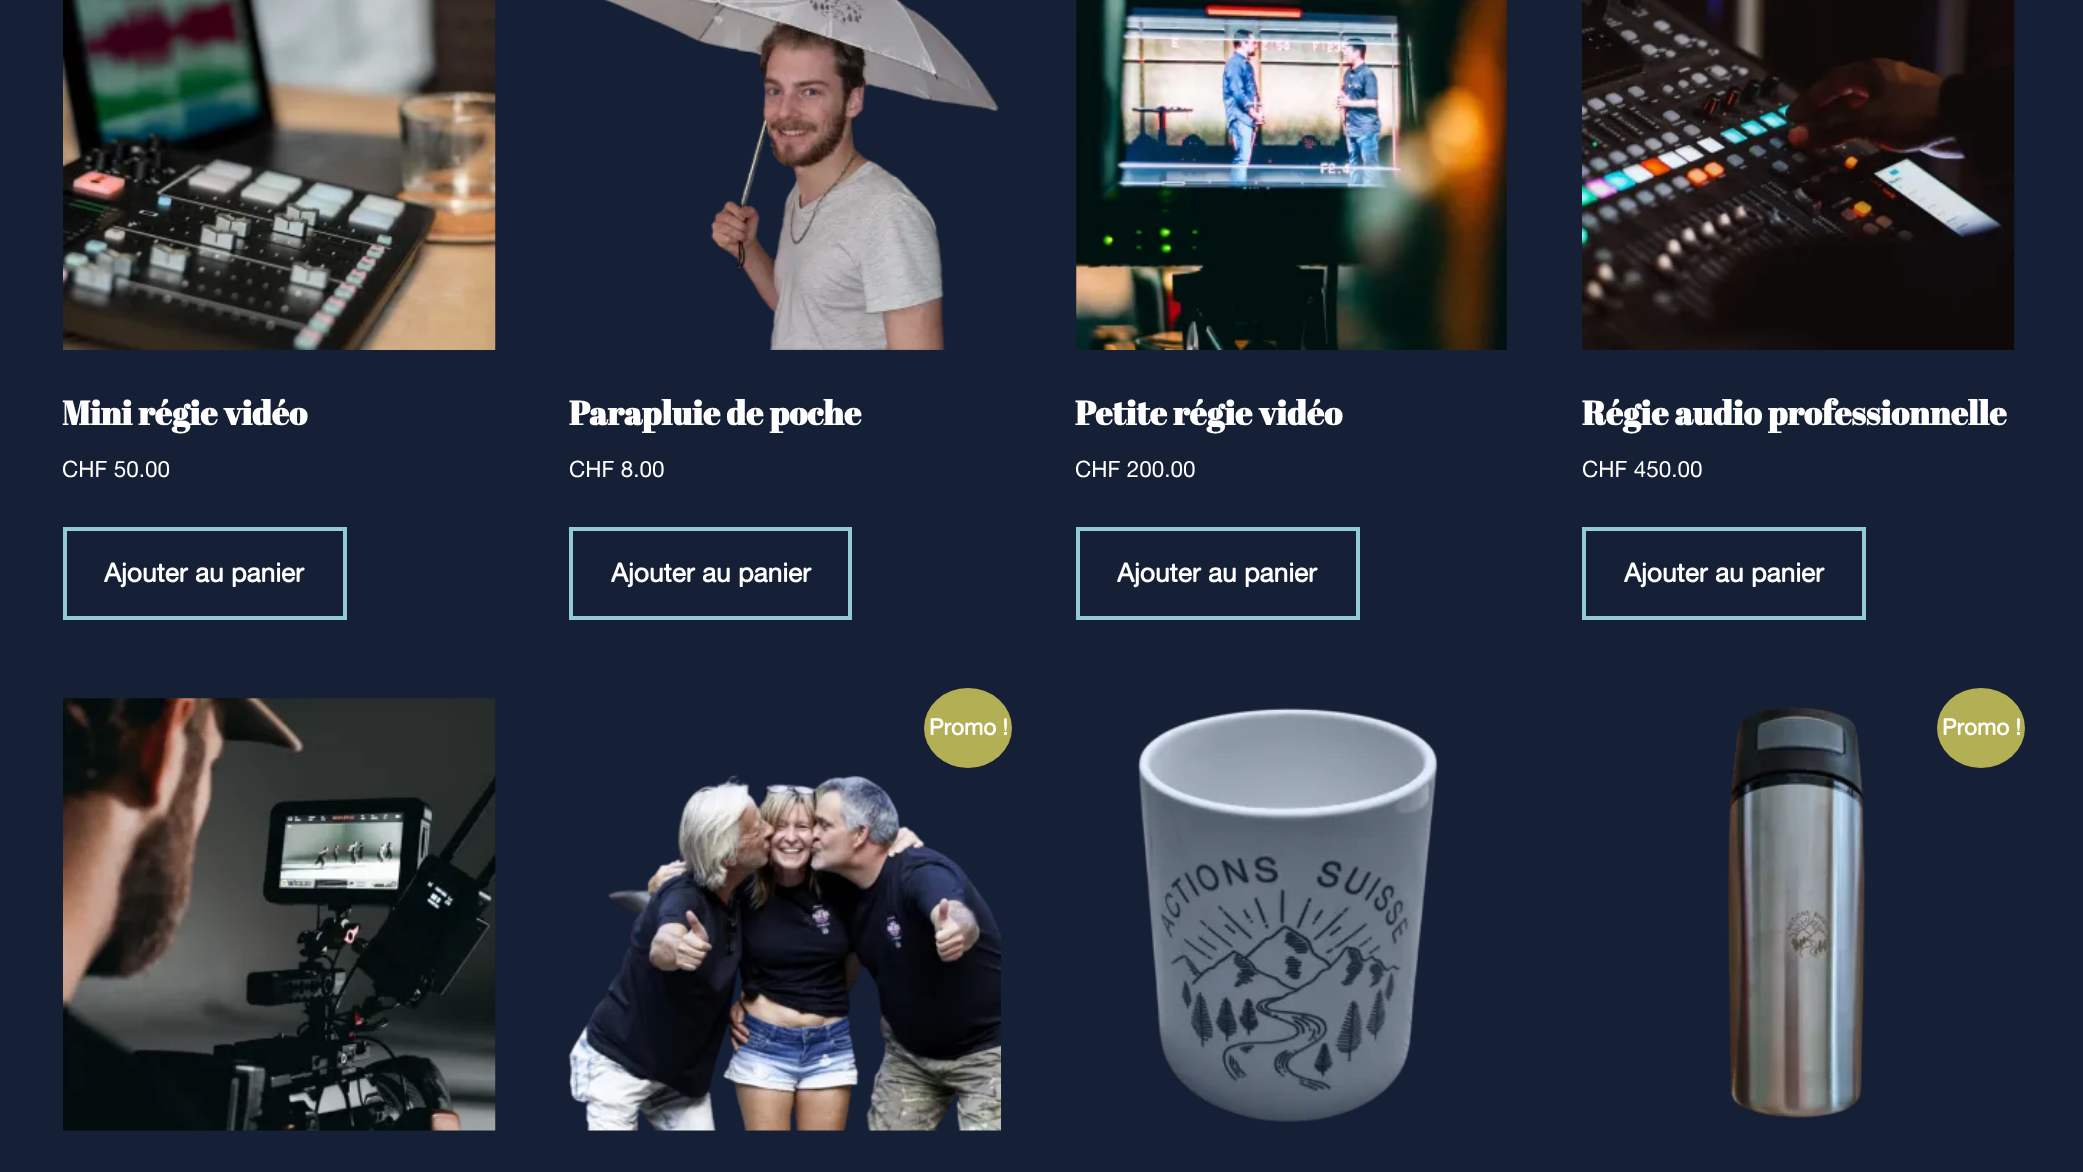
(async () => {
  const canvas = document.querySelector("canvas");
  canvas.width = 2083;
  canvas.height = 1172;
  const ctx = canvas.getContext("2d");
  ctx.miterLimit = 4;
  ctx.fontKerning = "normal";
  async function loadImage(src) {
    const img = new Image();
    img.src = src;
    await img.decode();
    return img;
  }

  ctx.fillStyle = "#151f36";
  ctx.fillRect(0, 0, 2083, 1172);
  ctx.drawImage(await loadImage("img/1.png"), 63, 0, 433, 350);
  ctx.strokeStyle = "#92cbd1";
  ctx.lineWidth = 4;
  ctx.strokeRect(65, 529, 280, 89);
  ctx.drawImage(await loadImage("img/2.png"), 603, 0, 396, 350);
  ctx.strokeRect(571, 529, 279, 89);
  ctx.drawImage(await loadImage("img/3.png"), 1076, 0, 431, 350);
  ctx.strokeRect(1078, 529, 280, 89);
  ctx.drawImage(await loadImage("img/4.png"), 1582, 0, 433, 350);
  ctx.strokeRect(1584, 529, 280, 89);
  ctx.drawImage(await loadImage("img/5.png"), 63, 698, 433, 433);
  ctx.fillStyle = "#b3af54";
  ctx.beginPath();
  ctx.ellipse(968, 728, 44, 40, 0, 0, Math.PI * 2);
  ctx.fill();
  ctx.drawImage(await loadImage("img/6.png"), 568, 774, 433, 357);
  ctx.drawImage(await loadImage("img/7.png"), 1137, 708, 301, 414);
  ctx.drawImage(await loadImage("img/8.png"), 1727, 707, 138, 411);
  ctx.beginPath();
  ctx.ellipse(1981, 728, 44, 40, 0, 0, Math.PI * 2);
  ctx.fill();
  ctx.font = "bold 33.6px Abril Fatface";
  ctx.fillStyle = "#ffffff";
  ctx.fillText("Mini régie vidéo", 62, 425);
  ctx.font = "22.5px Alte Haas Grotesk";
  ctx.fillText("CHF 50.00", 62, 477);
  ctx.font = "bold 26.25px Alte Haas Grotesk";
  ctx.fillText("Ajouter au panier", 104, 582);
  ctx.font = "bold 33.6px Abril Fatface";
  ctx.fillText("Parapluie de poche", 569, 425);
  ctx.font = "22.5px Alte Haas Grotesk";
  ctx.fillText("CHF 8.00", 569, 477);
  ctx.font = "bold 26.25px Alte Haas Grotesk";
  ctx.fillText("Ajouter au panier", 611, 582);
  ctx.font = "bold 33.6px Abril Fatface";
  ctx.fillText("Petite régie vidéo", 1075, 425);
  ctx.font = "22.5px Alte Haas Grotesk";
  ctx.fillText("CHF 200.00", 1075, 477);
  ctx.font = "bold 26.25px Alte Haas Grotesk";
  ctx.fillText("Ajouter au panier", 1117, 582);
  ctx.font = "bold 33.6px Abril Fatface";
  ctx.fillText("Régie audio professionnelle", 1582, 425);
  ctx.font = "22.5px Alte Haas Grotesk";
  ctx.fillText("CHF 450.00", 1582, 477);
  ctx.font = "bold 26.25px Alte Haas Grotesk";
  ctx.fillText("Ajouter au panier", 1624, 582);
  ctx.font = "bold 22.5px Alte Haas Grotesk";
  ctx.fillText("Promo !", 929, 735);
  ctx.fillText("Promo !", 1942, 735);
})();
